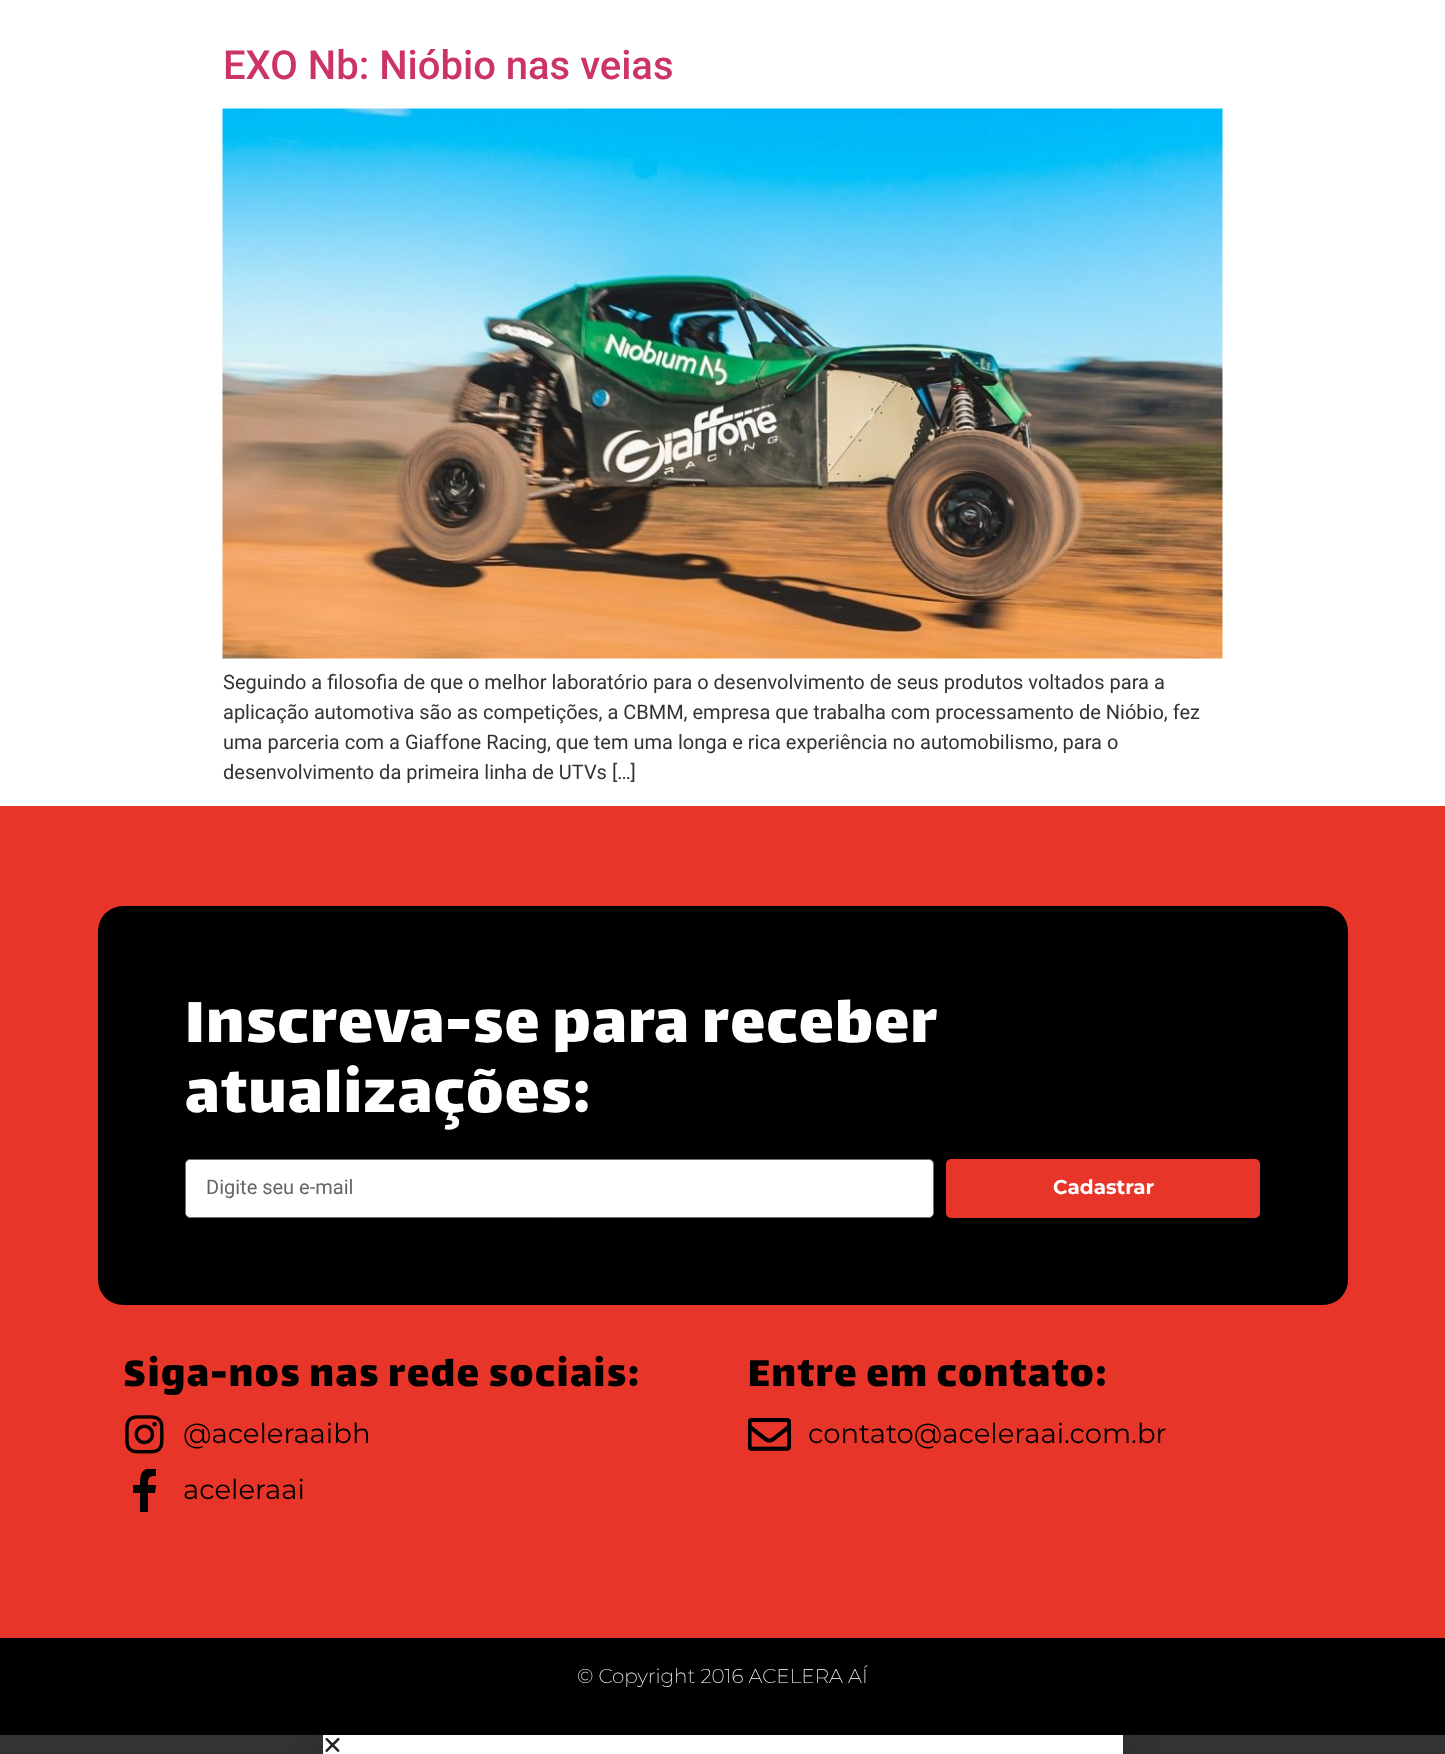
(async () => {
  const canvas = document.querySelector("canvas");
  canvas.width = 1445;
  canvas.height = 1754;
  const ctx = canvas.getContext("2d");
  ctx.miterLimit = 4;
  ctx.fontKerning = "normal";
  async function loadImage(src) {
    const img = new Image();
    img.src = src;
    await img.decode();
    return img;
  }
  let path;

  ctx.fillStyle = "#ffffff";
  ctx.fillRect(0, 0, 1445, 1754);
  ctx.drawImage(await loadImage("img/1.png"), 222, 108, 1001, 551);
  ctx.fillStyle = "#e73629";
  ctx.fillRect(0, 806, 1445, 832);
  ctx.fillStyle = "#000000";
  ctx.beginPath();
  ctx.roundRect(98, 906, 1250, 399, 25);
  ctx.fill();
  ctx.fillStyle = "#ffffff";
  ctx.beginPath();
  ctx.roundRect(185.5, 1159.5, 748, 58, 4.5);
  ctx.fill();
  ctx.strokeStyle = "#69727d";
  ctx.stroke();
  ctx.fillStyle = "#e73629";
  ctx.beginPath();
  ctx.roundRect(946, 1159, 314, 59, 5);
  ctx.fill();
  ctx.drawImage(await loadImage("img/2.png"), 125, 1415, 39, 39);
  ctx.save();
  ctx.beginPath();
  ctx.rect(123, 1469, 43, 44);
  ctx.clip();
  ctx.fillStyle = "#000000";
  path = new Path2D("M155 1493L156 1485H148C148 1478 148 1476 156 1476V1469C142 1467 140 1472 140 1485H133V1493H140V1512H148V1493Z");
  ctx.fill(path);
  ctx.restore();
  ctx.drawImage(await loadImage("img/3.png"), 748, 1418, 43, 33);
  ctx.fillStyle = "#333333";
  ctx.fillRect(0, 1735, 1445, 19);
  ctx.fillStyle = "rgba(0, 0, 0, 0.2)";
  ctx.filter = "blur(14.5px)";
  ctx.beginPath();
  ctx.rect(321, 1741, 808, 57);
  ctx.fill();
  ctx.filter = "none";
  ctx.fillStyle = "#000000";
  ctx.fillRect(0, 1638, 1445, 97);
  ctx.fillStyle = "#ffffff";
  ctx.fillRect(323, 1735, 800, 19);
  ctx.drawImage(await loadImage("img/4.png"), 325, 1737, 15, 15);
  ctx.font = "500 40px Roboto";
  ctx.fillStyle = "#cc3366";
  ctx.fillText("EXO Nb: Nióbio nas veias", 223, 79);
  ctx.font = "20px Roboto";
  ctx.fillStyle = "#333333";
  for (const [text, x, y] of [
    ["Seguindo a filosofia de que o melhor laboratório para o desenvolvimento de seus produtos voltados para a", 223, 689],
    ["aplicação automotiva são as competições, a CBMM, empresa que trabalha com processamento de Nióbio, fez", 223, 719],
    ["uma parceria com a Giaffone Racing, que tem uma longa e rica experiência no automobilismo, para o", 223, 749],
    ["desenvolvimento da primeira linha de UTVs […]", 223, 779],
  ]) {
    ctx.fillText(text, x, y);
  }
  ctx.letterSpacing = "1.6px";
  ctx.font = "70px Lalezar";
  ctx.fillStyle = "#ffffff";
  ctx.fillText("Inscreva-se para receber", 185, 1042);
  ctx.fillText("atualizações:", 185, 1112);
  ctx.letterSpacing = "0px";
  ctx.font = "20px Roboto";
  ctx.fillStyle = "#666666";
  ctx.fillText("Digite seu e-mail", 206, 1194);
  ctx.font = "bold 20px Montserrat";
  ctx.fillStyle = "#ffffff";
  ctx.fillText("Cadastrar", 1053, 1194);
  ctx.letterSpacing = "1.6px";
  ctx.font = "45px Lalezar";
  ctx.fillStyle = "#000000";
  ctx.fillText("Siga-nos nas rede sociais:", 123, 1386);
  ctx.letterSpacing = "0px";
  ctx.font = "27.5px Montserrat";
  ctx.fillText("@aceleraaibh", 183, 1443);
  ctx.fillText("aceleraai", 183, 1499);
  ctx.letterSpacing = "1.6px";
  ctx.font = "45px Lalezar";
  ctx.fillText("Entre em contato:", 748, 1386);
  ctx.letterSpacing = "0px";
  ctx.font = "27.5px Montserrat";
  ctx.fillText("contato@aceleraai.com.br", 808, 1443);
  ctx.font = "200 20px Montserrat";
  ctx.fillStyle = "#ffffff";
  ctx.fillText("© Copyright 2016 ACELERA AÍ", 577, 1683);
})();
